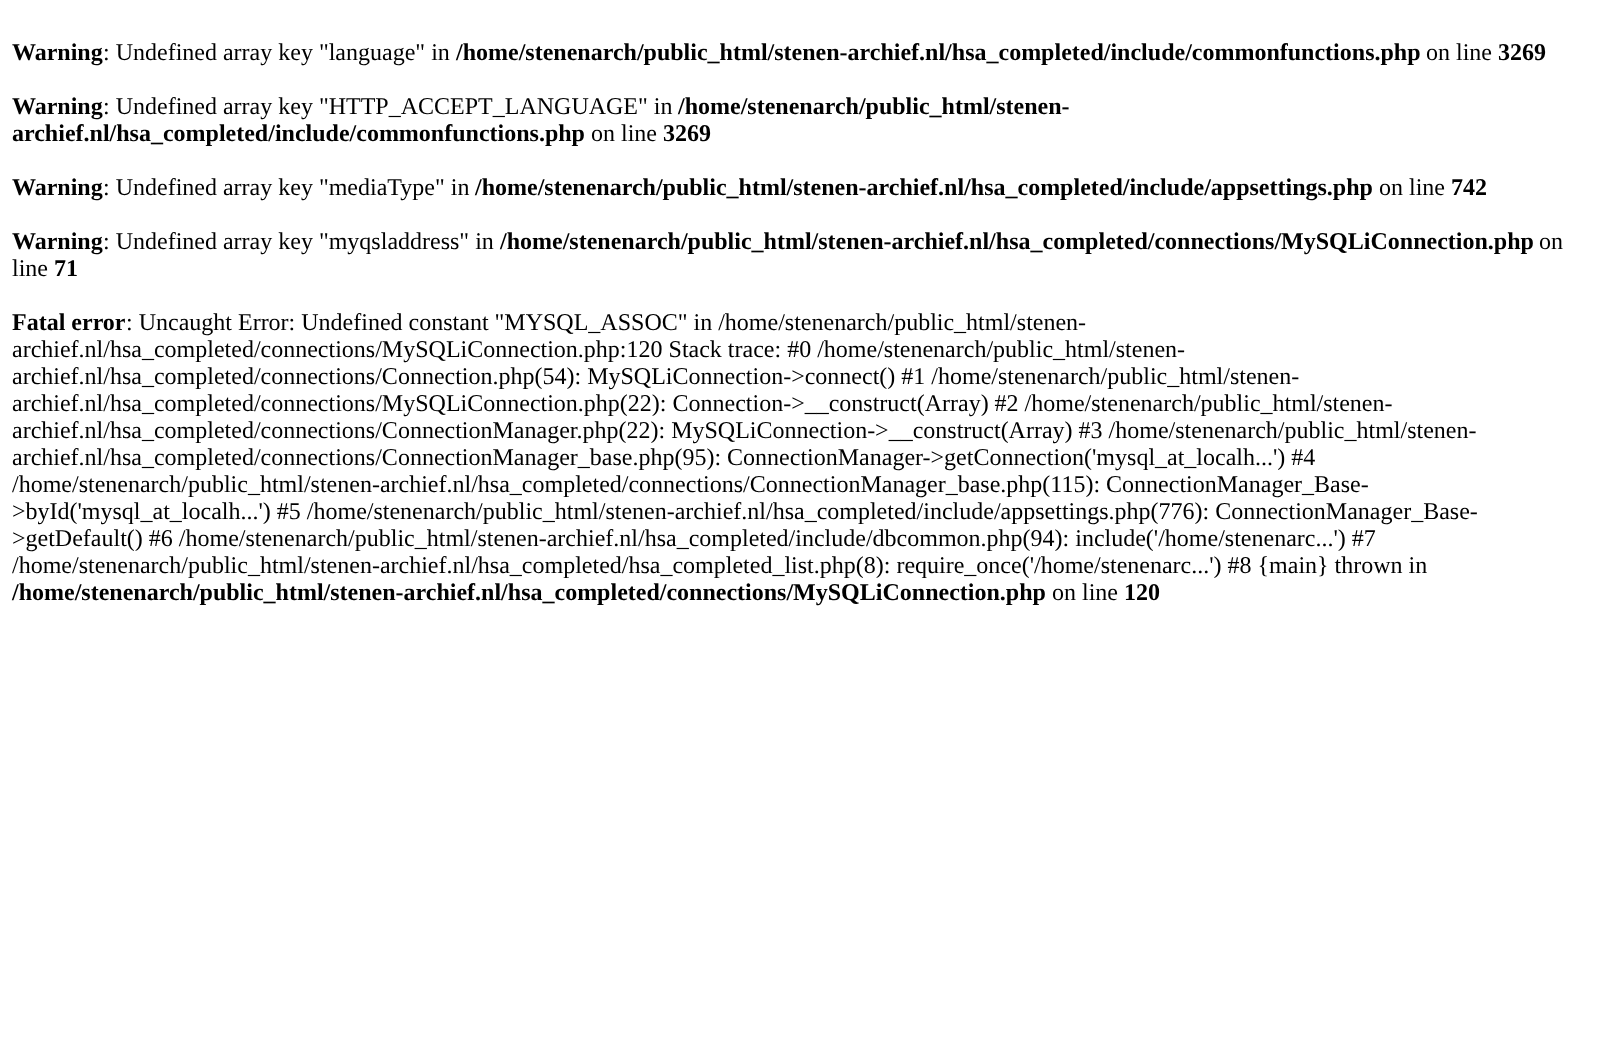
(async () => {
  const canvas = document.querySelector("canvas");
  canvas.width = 1603;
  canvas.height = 1051;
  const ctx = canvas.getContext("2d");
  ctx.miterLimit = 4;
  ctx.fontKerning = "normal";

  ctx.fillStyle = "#ffffff";
  ctx.fillRect(0, 0, 1603, 1051);
  ctx.font = "bold 24px Liberation Serif";
  ctx.fillStyle = "#000000";
  ctx.fillText("Warning", 12, 60);
  ctx.font = "24px Liberation Serif";
  ctx.fillText(": Undefined array key \"language\" in", 103, 60);
  ctx.font = "bold 24px Liberation Serif";
  ctx.fillText("/home/stenenarch/public_html/stenen-archief.nl/hsa_completed/include/commonfunctions.php", 456, 60);
  ctx.font = "24px Liberation Serif";
  ctx.fillText("on line", 1426, 60);
  ctx.font = "bold 24px Liberation Serif";
  ctx.fillText("3269", 1498, 60);
  ctx.fillText("Warning", 12, 114);
  ctx.font = "24px Liberation Serif";
  ctx.fillText(": Undefined array key \"HTTP_ACCEPT_LANGUAGE\" in", 103, 114);
  ctx.font = "bold 24px Liberation Serif";
  ctx.fillText("/home/stenenarch/public_html/stenen-", 678, 114);
  ctx.fillText("archief.nl/hsa_completed/include/commonfunctions.php", 12, 141);
  ctx.font = "24px Liberation Serif";
  ctx.fillText("on line", 591, 141);
  ctx.font = "bold 24px Liberation Serif";
  ctx.fillText("3269", 663, 141);
  ctx.fillText("Warning", 12, 195);
  ctx.font = "24px Liberation Serif";
  ctx.fillText(": Undefined array key \"mediaType\" in", 103, 195);
  ctx.font = "bold 24px Liberation Serif";
  ctx.fillText("/home/stenenarch/public_html/stenen-archief.nl/hsa_completed/include/appsettings.php", 475, 195);
  ctx.font = "24px Liberation Serif";
  ctx.fillText("on line", 1379, 195);
  ctx.font = "bold 24px Liberation Serif";
  ctx.fillText("742", 1451, 195);
  ctx.fillText("Warning", 12, 249);
  ctx.font = "24px Liberation Serif";
  ctx.fillText(": Undefined array key \"myqsladdress\" in", 103, 249);
  ctx.font = "bold 24px Liberation Serif";
  ctx.fillText("/home/stenenarch/public_html/stenen-archief.nl/hsa_completed/connections/MySQLiConnection.php", 500, 249);
  ctx.font = "24px Liberation Serif";
  ctx.fillText("on", 1539, 249);
  ctx.fillText("line", 12, 276);
  ctx.font = "bold 24px Liberation Serif";
  ctx.fillText("71", 54, 276);
  ctx.fillText("Fatal error", 12, 330);
  ctx.font = "24px Liberation Serif";
  for (const [text, x, y] of [
    [": Uncaught Error: Undefined constant \"MYSQL_ASSOC\" in /home/stenenarch/public_html/stenen-", 126, 330],
    ["archief.nl/hsa_completed/connections/MySQLiConnection.php:120 Stack trace: #0 /home/stenenarch/public_html/stenen-", 12, 357],
    ["archief.nl/hsa_completed/connections/Connection.php(54): MySQLiConnection->connect() #1 /home/stenenarch/public_html/stenen-", 12, 384],
    ["archief.nl/hsa_completed/connections/MySQLiConnection.php(22): Connection->__construct(Array) #2 /home/stenenarch/public_html/stenen-", 12, 411],
    ["archief.nl/hsa_completed/connections/ConnectionManager.php(22): MySQLiConnection->__construct(Array) #3 /home/stenenarch/public_html/stenen-", 12, 438],
    ["archief.nl/hsa_completed/connections/ConnectionManager_base.php(95): ConnectionManager->getConnection('mysql_at_localh...') #4", 12, 465],
    ["/home/stenenarch/public_html/stenen-archief.nl/hsa_completed/connections/ConnectionManager_base.php(115): ConnectionManager_Base-", 12, 492],
    [">byId('mysql_at_localh...') #5 /home/stenenarch/public_html/stenen-archief.nl/hsa_completed/include/appsettings.php(776): ConnectionManager_Base-", 12, 519],
    [">getDefault() #6 /home/stenenarch/public_html/stenen-archief.nl/hsa_completed/include/dbcommon.php(94): include('/home/stenenarc...') #7", 12, 546],
    ["/home/stenenarch/public_html/stenen-archief.nl/hsa_completed/hsa_completed_list.php(8): require_once('/home/stenenarc...') #8 {main} thrown in", 12, 573],
  ]) {
    ctx.fillText(text, x, y);
  }
  ctx.font = "bold 24px Liberation Serif";
  ctx.fillText("/home/stenenarch/public_html/stenen-archief.nl/hsa_completed/connections/MySQLiConnection.php", 12, 600);
  ctx.font = "24px Liberation Serif";
  ctx.fillText("on line", 1052, 600);
  ctx.font = "bold 24px Liberation Serif";
  ctx.fillText("120", 1124, 600);
})();
